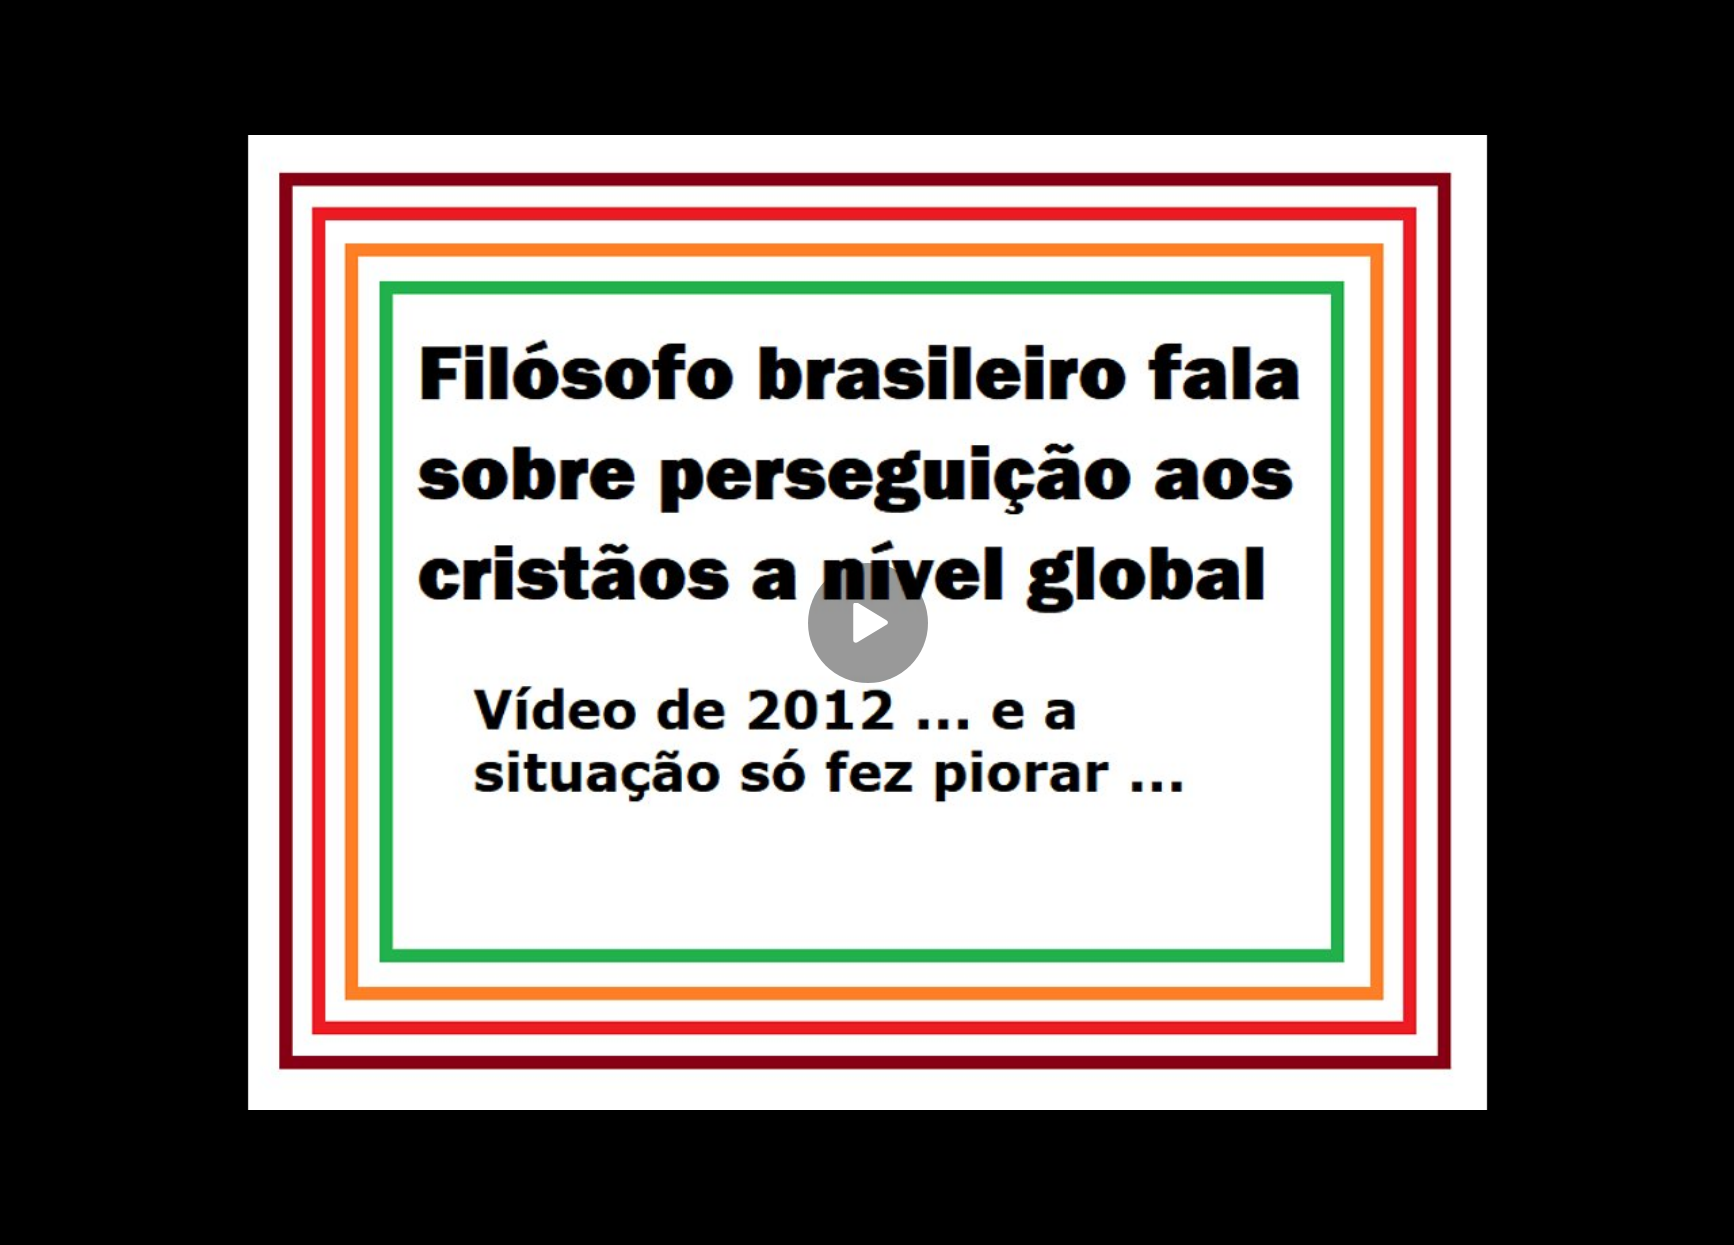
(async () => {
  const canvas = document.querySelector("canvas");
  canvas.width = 1734;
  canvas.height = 1245;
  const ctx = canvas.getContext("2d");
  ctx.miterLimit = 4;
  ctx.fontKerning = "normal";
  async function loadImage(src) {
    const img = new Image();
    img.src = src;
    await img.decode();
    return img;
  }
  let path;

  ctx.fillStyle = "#000000";
  ctx.fillRect(0, 0, 1734, 1245);
  ctx.drawImage(await loadImage("img/1.png"), 247, 135, 1241, 975);
  ctx.fillStyle = "rgba(0, 0, 0, 0.4)";
  ctx.beginPath();
  ctx.arc(868, 623, 60, 0, Math.PI * 2);
  ctx.fill();
  ctx.fillStyle = "#ffffff";
  path = new Path2D("M885 622.5L856 605V640Z");
  ctx.fill(path);
  ctx.save();
  ctx.beginPath();
  ctx.rect(848, 603, 40, 40);
  ctx.clip();
  path = new Path2D("M885 622.5L856 605V640Z");
  ctx.strokeStyle = "#ffffff";
  ctx.lineWidth = 5.5;
  ctx.lineJoin = "round";
  ctx.stroke(path);
  ctx.restore();
})();
